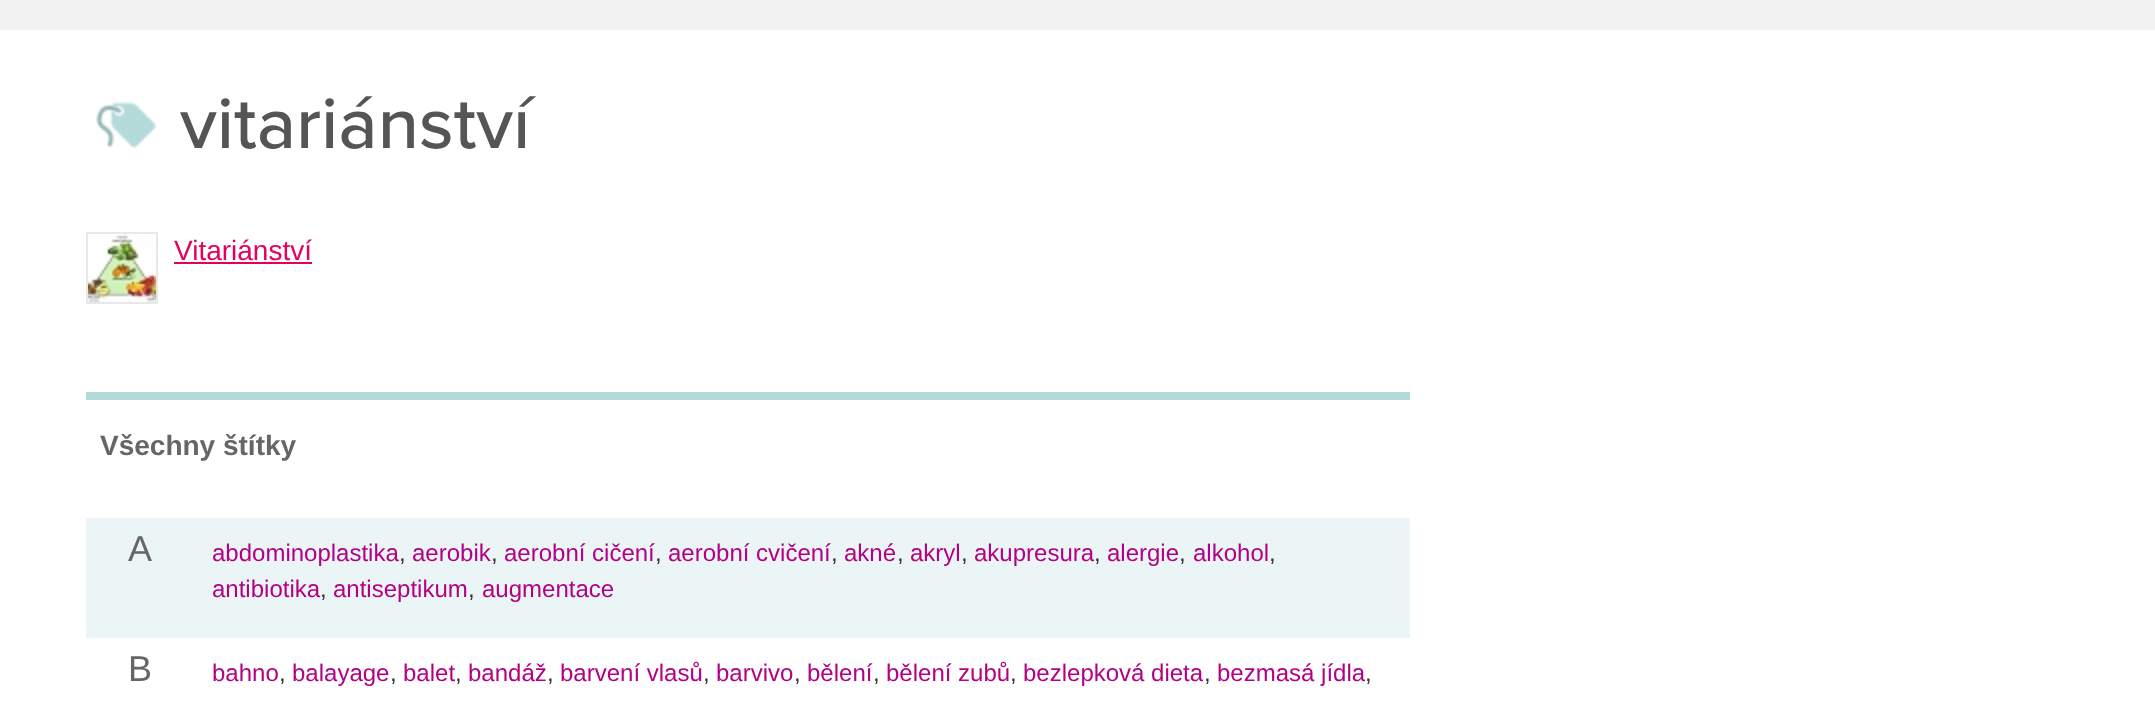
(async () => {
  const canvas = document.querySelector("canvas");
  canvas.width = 2155;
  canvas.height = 711;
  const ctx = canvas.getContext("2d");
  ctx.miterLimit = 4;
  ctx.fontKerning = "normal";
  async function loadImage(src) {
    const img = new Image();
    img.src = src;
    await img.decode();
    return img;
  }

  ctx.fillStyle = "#ffffff";
  ctx.fillRect(0, 0, 2155, 711);
  ctx.fillStyle = "#f2f2f2";
  ctx.fillRect(0, 0, 2155, 30);
  ctx.drawImage(await loadImage("img/1.png"), 96, 101, 60, 47);
  ctx.strokeStyle = "#e8e8e8";
  ctx.lineWidth = 2;
  ctx.strokeRect(87, 233, 70, 70);
  ctx.drawImage(await loadImage("img/2.png"), 88, 235, 68, 67);
  for (const [x, y, w, h, color] of [
    [174, 262, 138, 2, "#e5005c"],
    [86, 392, 1324, 8, "#b4dada"],
    [86, 518, 1324, 120, "#ebf5f5"],
  ]) {
    ctx.fillStyle = color;
    ctx.fillRect(x, y, w, h);
  }
  ctx.font = "500 74px Proxima Nova";
  ctx.fillStyle = "#555555";
  ctx.fillText("vitariánství", 180, 148);
  ctx.font = "28px Liberation Sans";
  ctx.fillStyle = "#e5005c";
  ctx.fillText("Vitariánství", 174, 260);
  ctx.font = "bold 28px Liberation Sans";
  ctx.fillStyle = "#666666";
  ctx.fillText("Všechny štítky", 100, 455);
  ctx.font = "36px Liberation Sans";
  ctx.fillText("A", 128, 561);
  ctx.font = "24px Liberation Sans";
  ctx.fillStyle = "#b30086";
  ctx.fillText("abdominoplastika", 212, 561);
  ctx.fillStyle = "#333333";
  ctx.fillText(",", 399, 561);
  ctx.fillStyle = "#b30086";
  ctx.fillText("aerobik", 412, 561);
  ctx.fillStyle = "#333333";
  ctx.fillText(",", 491, 561);
  ctx.fillStyle = "#b30086";
  ctx.fillText("aerobní cičení", 504, 561);
  ctx.fillStyle = "#333333";
  ctx.fillText(",", 655, 561);
  ctx.fillStyle = "#b30086";
  ctx.fillText("aerobní cvičení", 668, 561);
  ctx.fillStyle = "#333333";
  ctx.fillText(",", 831, 561);
  ctx.fillStyle = "#b30086";
  ctx.fillText("akné", 844, 561);
  ctx.fillStyle = "#333333";
  ctx.fillText(",", 897, 561);
  ctx.fillStyle = "#b30086";
  ctx.fillText("akryl", 910, 561);
  ctx.fillStyle = "#333333";
  ctx.fillText(",", 961, 561);
  ctx.fillStyle = "#b30086";
  ctx.fillText("akupresura", 974, 561);
  ctx.fillStyle = "#333333";
  ctx.fillText(",", 1094, 561);
  ctx.fillStyle = "#b30086";
  ctx.fillText("alergie", 1107, 561);
  ctx.fillStyle = "#333333";
  ctx.fillText(",", 1179, 561);
  ctx.fillStyle = "#b30086";
  ctx.fillText("alkohol", 1193, 561);
  ctx.fillStyle = "#333333";
  ctx.fillText(",", 1269, 561);
  ctx.fillStyle = "#b30086";
  ctx.fillText("antibiotika", 212, 597);
  ctx.fillStyle = "#333333";
  ctx.fillText(",", 320, 597);
  ctx.fillStyle = "#b30086";
  ctx.fillText("antiseptikum", 333, 597);
  ctx.fillStyle = "#333333";
  ctx.fillText(",", 468, 597);
  ctx.fillStyle = "#b30086";
  ctx.fillText("augmentace", 482, 597);
  ctx.font = "36px Liberation Sans";
  ctx.fillStyle = "#666666";
  ctx.fillText("B", 128, 681);
  ctx.font = "24px Liberation Sans";
  ctx.fillStyle = "#b30086";
  ctx.fillText("bahno", 212, 681);
  ctx.fillStyle = "#333333";
  ctx.fillText(",", 279, 681);
  ctx.fillStyle = "#b30086";
  ctx.fillText("balayage", 292, 681);
  ctx.fillStyle = "#333333";
  ctx.fillText(",", 390, 681);
  ctx.fillStyle = "#b30086";
  ctx.fillText("balet", 403, 681);
  ctx.fillStyle = "#333333";
  ctx.fillText(",", 455, 681);
  ctx.fillStyle = "#b30086";
  ctx.fillText("bandáž", 468, 681);
  ctx.fillStyle = "#333333";
  ctx.fillText(",", 547, 681);
  ctx.fillStyle = "#b30086";
  ctx.fillText("barvení vlasů", 560, 681);
  ctx.fillStyle = "#333333";
  ctx.fillText(",", 703, 681);
  ctx.fillStyle = "#b30086";
  ctx.fillText("barvivo", 716, 681);
  ctx.fillStyle = "#333333";
  ctx.fillText(",", 794, 681);
  ctx.fillStyle = "#b30086";
  ctx.fillText("bělení", 807, 681);
  ctx.fillStyle = "#333333";
  ctx.fillText(",", 873, 681);
  ctx.fillStyle = "#b30086";
  ctx.fillText("bělení zubů", 886, 681);
  ctx.fillStyle = "#333333";
  ctx.fillText(",", 1010, 681);
  ctx.fillStyle = "#b30086";
  ctx.fillText("bezlepková dieta", 1023, 681);
  ctx.fillStyle = "#333333";
  ctx.fillText(",", 1204, 681);
  ctx.fillStyle = "#b30086";
  ctx.fillText("bezmasá jídla", 1217, 681);
  ctx.fillStyle = "#333333";
  ctx.fillText(",", 1365, 681);
})();
